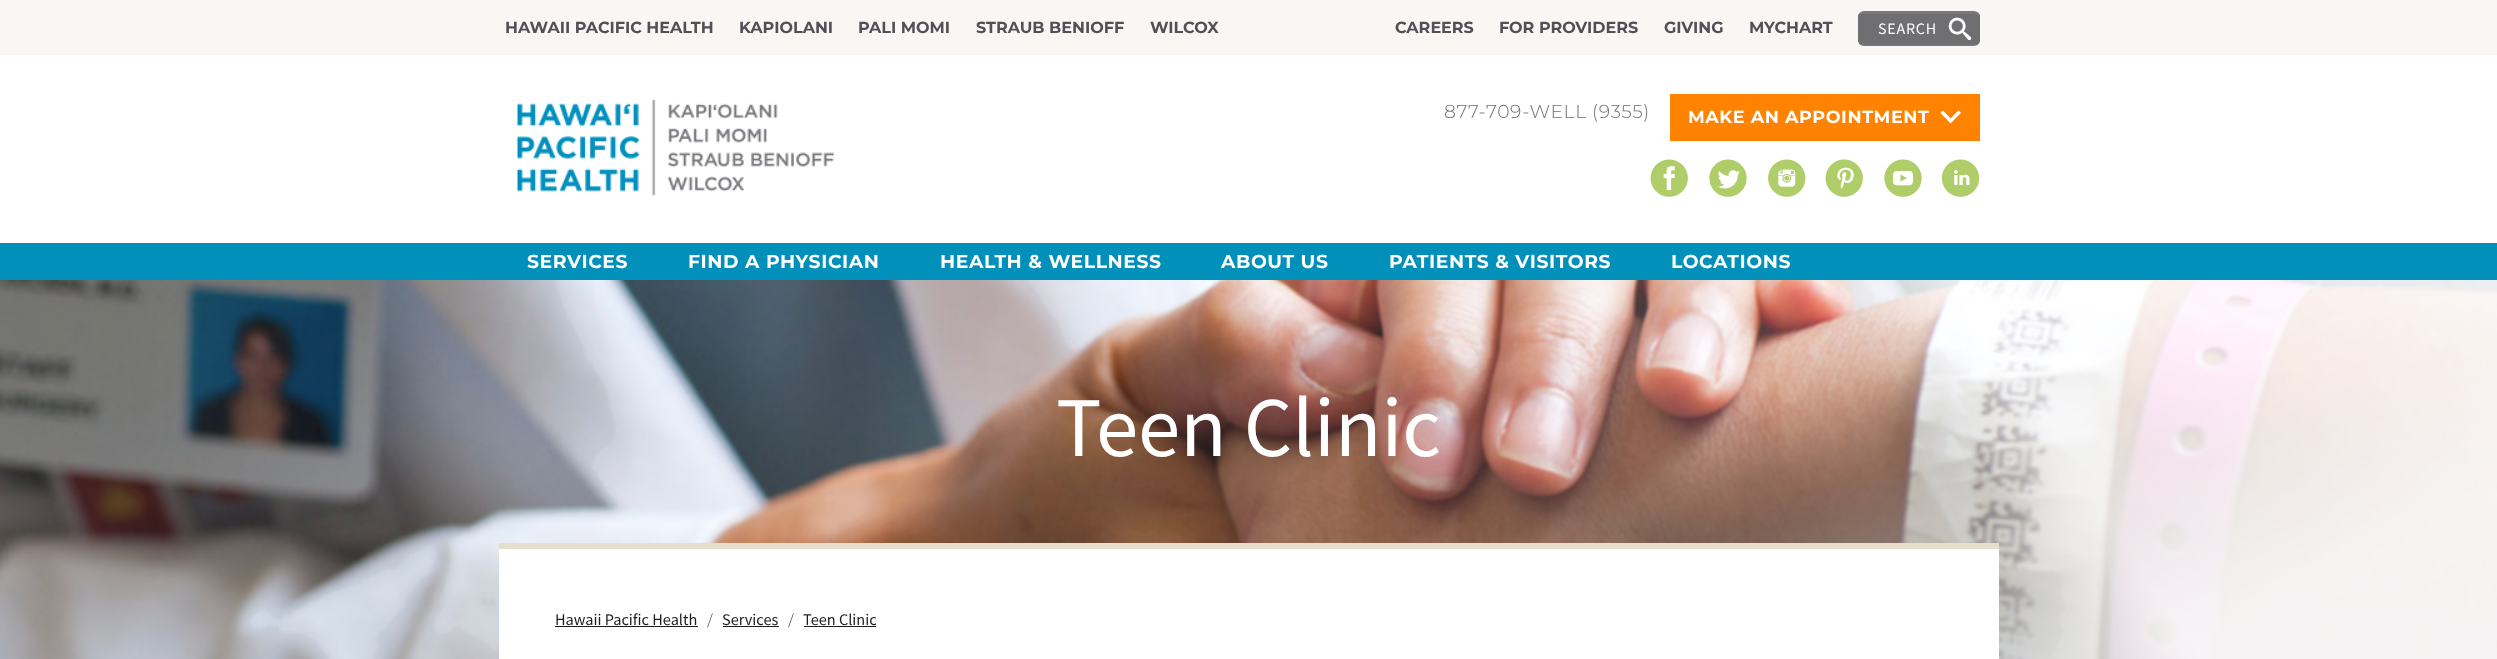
(async () => {
  const canvas = document.querySelector("canvas");
  canvas.width = 2497;
  canvas.height = 659;
  const ctx = canvas.getContext("2d");
  ctx.miterLimit = 4;
  ctx.fontKerning = "normal";
  async function loadImage(src) {
    const img = new Image();
    img.src = src;
    await img.decode();
    return img;
  }

  ctx.fillStyle = "#ffffff";
  ctx.fillRect(0, 0, 2497, 659);
  ctx.fillStyle = "#f9f7f3";
  ctx.fillRect(0, 0, 2497, 55);
  ctx.fillStyle = "#78787a";
  ctx.beginPath();
  ctx.roundRect(1858, 11, 122, 35, 6);
  ctx.fill();
  ctx.save();
  ctx.beginPath();
  ctx.roundRect(1858, 11, 122, 35, 6);
  ctx.clip();
  ctx.fillStyle = "#6f6f71";
  ctx.fillRect(1858, 14, 122, 30);
  ctx.restore();
  ctx.drawImage(await loadImage("img/1.png"), 1948, 17, 24, 24);
  ctx.drawImage(await loadImage("img/2.png"), 517, 99, 317, 97);
  ctx.fillStyle = "#ff8200";
  ctx.fillRect(1670, 94, 310, 47);
  ctx.drawImage(await loadImage("img/3.png"), 1940, 110, 21, 14);
  ctx.drawImage(await loadImage("img/4.png"), 1650, 159, 38, 38);
  ctx.drawImage(await loadImage("img/5.png"), 1709, 159, 38, 38);
  ctx.drawImage(await loadImage("img/6.png"), 1768, 159, 38, 38);
  ctx.drawImage(await loadImage("img/7.png"), 1825, 159, 38, 38);
  ctx.drawImage(await loadImage("img/8.png"), 1884, 159, 38, 38);
  ctx.drawImage(await loadImage("img/9.png"), 1941, 159, 39, 38);
  ctx.fillStyle = "#0090ba";
  ctx.fillRect(0, 243, 2497, 37);
  ctx.drawImage(await loadImage("img/10.png"), 0, 280, 2497, 379);
  for (const [x, y, w, h, color] of [
    [499, 549, 1500, 110, "#ffffff"],
    [499, 543, 1500, 6, "#e6dfcd"],
    [555, 626, 143, 1, "#1e1e20"],
    [723, 626, 56, 1, "#1e1e20"],
    [804, 626, 72, 1, "#1e1e20"],
  ]) {
    ctx.fillStyle = color;
    ctx.fillRect(x, y, w, h);
  }
  ctx.font = "bold 16px Montserrat";
  ctx.fillStyle = "#505056";
  for (const [text, x, y] of [
    ["HAWAII PACIFIC HEALTH", 505, 33],
    ["KAPIOLANI", 739, 33],
    ["PALI MOMI", 858, 33],
    ["STRAUB BENIOFF", 976, 33],
    ["WILCOX", 1150, 33],
    ["CAREERS", 1395, 33],
    ["FOR PROVIDERS", 1499, 33],
    ["GIVING", 1664, 33],
    ["MYCHART", 1749, 33],
  ]) {
    ctx.fillText(text, x, y);
  }
  ctx.letterSpacing = "0.75px";
  ctx.font = "16px Source Sans Pro";
  ctx.fillStyle = "#ffffff";
  ctx.fillText("SEARCH", 1878, 34);
  ctx.letterSpacing = "0.6px";
  ctx.font = "300 18.75px Montserrat";
  ctx.fillStyle = "#6f6f71";
  ctx.fillText("877-709-WELL (9355)", 1444, 118);
  ctx.font = "bold 17.5px Montserrat";
  ctx.fillStyle = "#ffffff";
  ctx.fillText("MAKE AN APPOINTMENT", 1688, 123);
  ctx.font = "bold 18.75px Montserrat";
  for (const [text, x, y] of [
    ["SERVICES", 527, 268],
    ["FIND A PHYSICIAN", 688, 268],
    ["HEALTH & WELLNESS", 940, 268],
    ["ABOUT US", 1221, 268],
    ["PATIENTS & VISITORS", 1389, 268],
    ["LOCATIONS", 1671, 268],
  ]) {
    ctx.fillText(text, x, y);
  }
  ctx.letterSpacing = "0px";
  ctx.font = "85px Source Sans Pro";
  ctx.fillText("Teen Clinic", 1056, 456);
  ctx.font = "16.25px Source Sans Pro";
  ctx.fillStyle = "#1e1e20";
  ctx.fillText("Hawaii Pacific Health", 555, 625);
  ctx.font = "300 16.25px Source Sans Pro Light";
  ctx.fillText("/", 707, 625);
  ctx.font = "16.25px Source Sans Pro";
  ctx.fillText("Services", 722, 625);
  ctx.font = "300 16.25px Source Sans Pro Light";
  ctx.fillText("/", 788, 625);
  ctx.font = "16.25px Source Sans Pro";
  ctx.fillText("Teen Clinic", 803, 625);
})();
